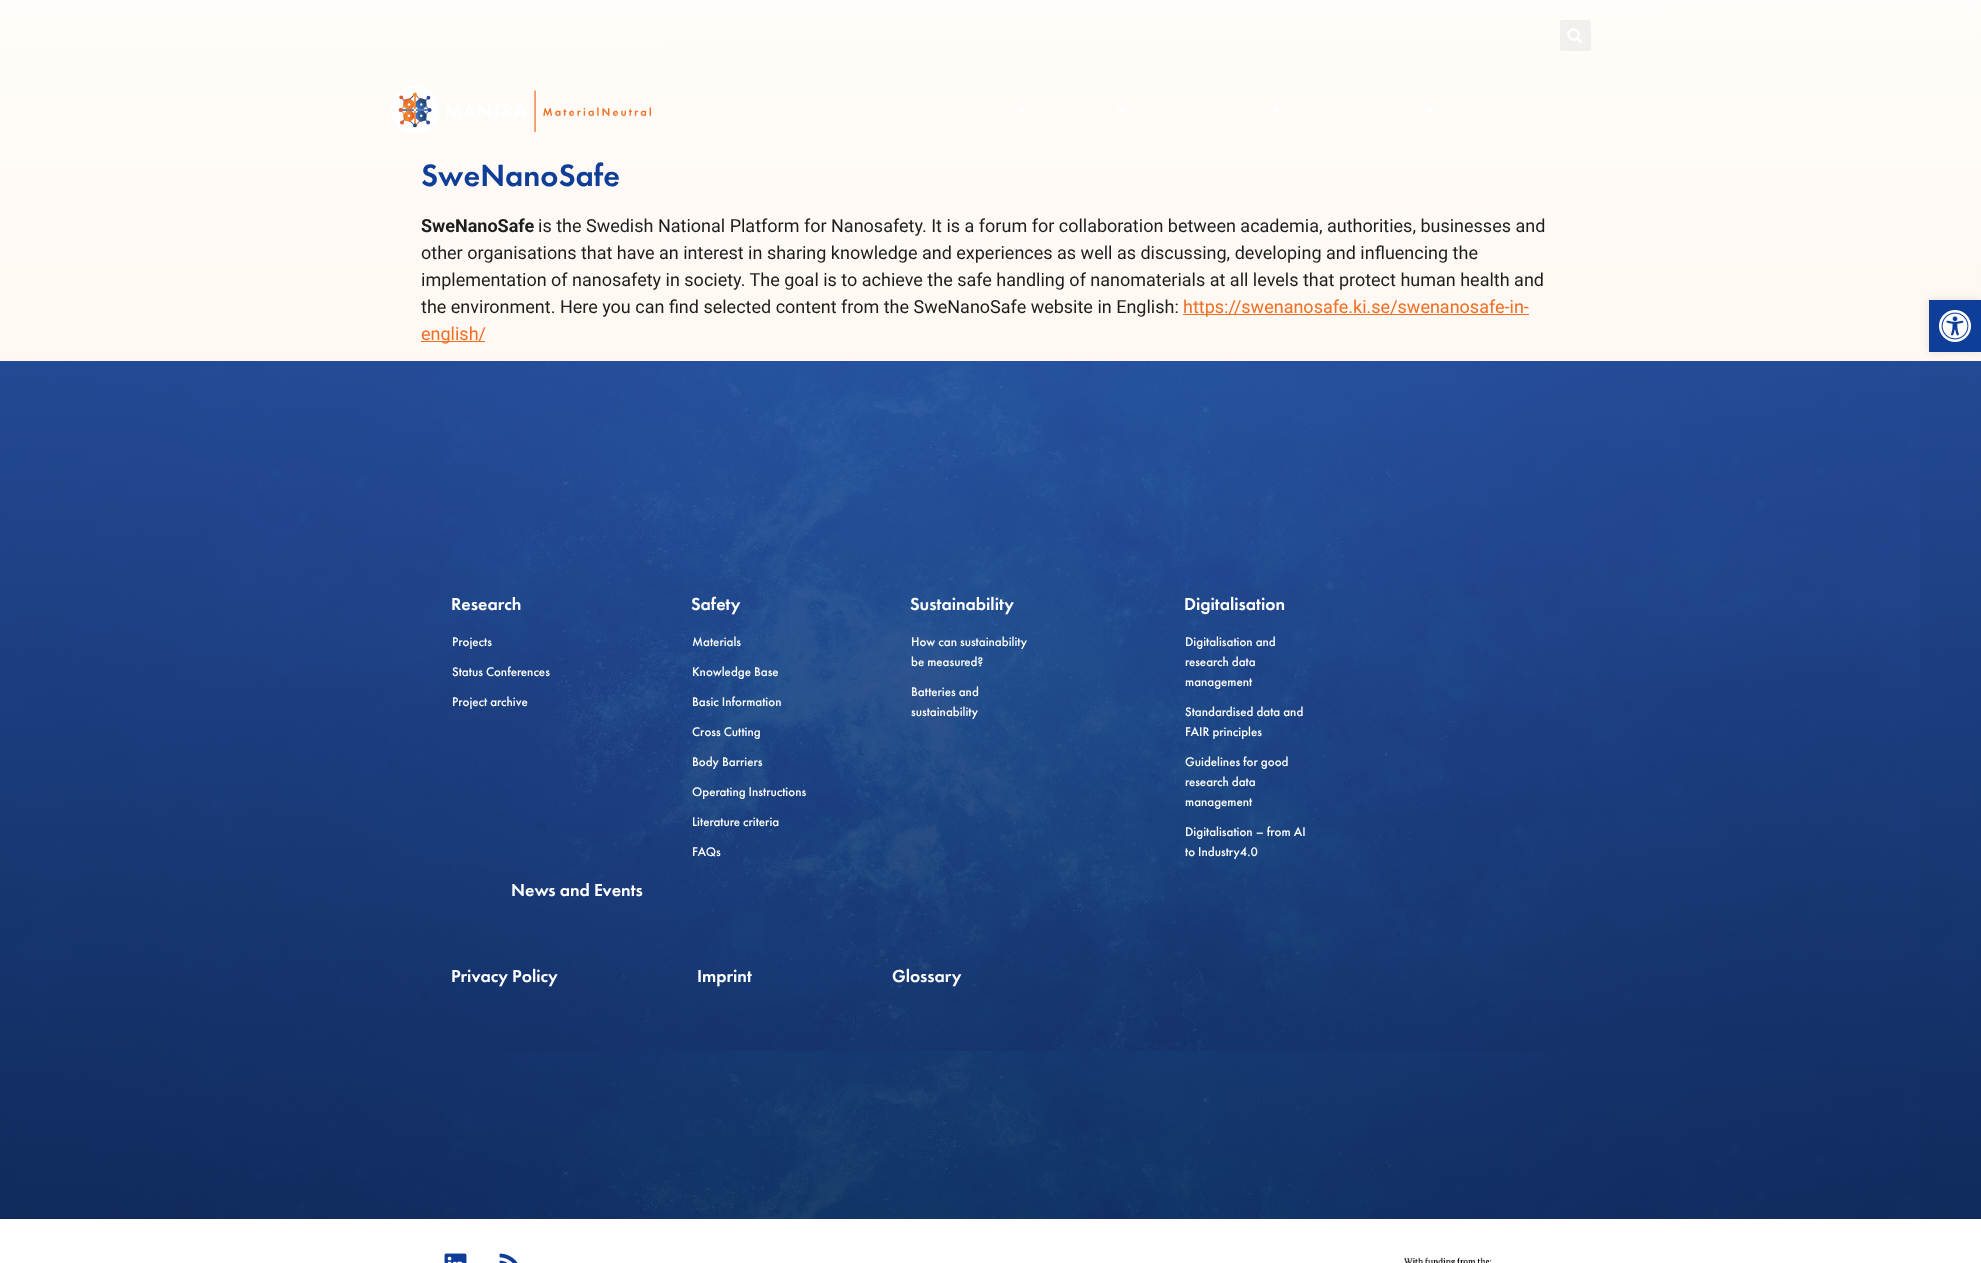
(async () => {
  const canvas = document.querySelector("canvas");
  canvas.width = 1981;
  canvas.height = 1263;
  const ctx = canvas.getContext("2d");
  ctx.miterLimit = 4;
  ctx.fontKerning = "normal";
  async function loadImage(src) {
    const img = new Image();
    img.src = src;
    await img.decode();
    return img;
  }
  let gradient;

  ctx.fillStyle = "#ffffff";
  ctx.fillRect(0, 0, 1981, 1263);
  gradient = ctx.createLinearGradient(990, 0, 991, 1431);
  gradient.addColorStop(0, "#fffcf9");
  gradient.addColorStop(1, "#feebe0");
  ctx.fillStyle = gradient;
  ctx.fillRect(0, 0, 1981, 361);
  ctx.fillStyle = "#f2efec";
  ctx.beginPath();
  ctx.roundRect(1560, 20, 31, 31, 3);
  ctx.fill();
  ctx.drawImage(await loadImage("img/1.png"), 1567, 28, 16, 15);
  ctx.drawImage(await loadImage("img/2.png"), 391, 86, 260, 48);
  ctx.drawImage(await loadImage("img/3.png"), 1018, 108, 8, 5);
  ctx.drawImage(await loadImage("img/3.png"), 1117, 108, 8, 5);
  ctx.drawImage(await loadImage("img/3.png"), 1272, 108, 8, 5);
  ctx.drawImage(await loadImage("img/3.png"), 1427, 108, 8, 5);
  for (const [x, y, w, h, color] of [
    [1183, 314, 346, 1, "#f26e22"],
    [421, 341, 64, 1, "#f26e22"],
    [0, 361, 1981, 858, "#0f3e99"],
  ]) {
    ctx.fillStyle = color;
    ctx.fillRect(x, y, w, h);
  }
  ctx.drawImage(await loadImage("img/5.png"), 0, 361, 1981, 858);
  gradient = ctx.createLinearGradient(991, 361, 991, 1219);
  gradient.addColorStop(0, "rgba(58, 98, 171, 0.5)");
  gradient.addColorStop(1, "rgba(18, 35, 58, 0.5)");
  ctx.fillStyle = gradient;
  ctx.fillRect(0, 361, 1981, 858);
  ctx.fillStyle = "rgba(0, 0, 0, 0.1)";
  ctx.filter = "blur(5px)";
  ctx.beginPath();
  ctx.rect(1929, 300, 52, 52);
  ctx.fill();
  ctx.filter = "none";
  ctx.fillStyle = "#0f3e99";
  ctx.fillRect(1929, 300, 52, 52);
  ctx.drawImage(await loadImage("img/4.png"), 1939, 310, 32, 32);
  ctx.drawImage(await loadImage("img/6.png"), 444, 1253, 23, 10);
  ctx.drawImage(await loadImage("img/7.png"), 499, 1253, 19, 10);
  ctx.drawImage(await loadImage("img/8.png"), 1404, 1257, 88, 6);
  ctx.font = "500 32px Futura PT";
  ctx.fillText("SweNanoSafe", 421, 186);
  ctx.font = "bold 18px Roboto";
  ctx.fillStyle = "#1d1d1d";
  ctx.fillText("SweNanoSafe", 421, 232);
  ctx.font = "18px Roboto";
  for (const [text, x, y] of [
    ["is the Swedish National Platform for Nanosafety. It is a forum for collaboration between academia, authorities, businesses and", 538, 232],
    ["other organisations that have an interest in sharing knowledge and experiences as well as discussing, developing and influencing the", 421, 259],
    ["implementation of nanosafety in society. The goal is to achieve the safe handling of nanomaterials at all levels that protect human health and", 421, 286],
    ["the environment. Here you can find selected content from the SweNanoSafe website in English:", 421, 313],
  ]) {
    ctx.fillText(text, x, y);
  }
  ctx.fillStyle = "#f26e22";
  ctx.fillText("https://swenanosafe.ki.se/swenanosafe-in-", 1183, 313);
  ctx.fillText("english/", 421, 340);
  ctx.font = "500 18px Futura PT";
  ctx.fillStyle = "#ffffff";
  ctx.fillText("Research", 451, 610);
  ctx.font = "500 13px 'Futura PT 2'";
  for (const [text, x, y] of [
    ["Projects", 452, 646],
    ["Status Conferences", 452, 676],
    ["Project archive", 452, 706],
  ]) {
    ctx.fillText(text, x, y);
  }
  ctx.font = "500 18px Futura PT";
  ctx.fillText("Safety", 691, 610);
  ctx.font = "500 13px 'Futura PT 2'";
  for (const [text, x, y] of [
    ["Materials", 692, 646],
    ["Knowledge Base", 692, 676],
    ["Basic Information", 692, 706],
    ["Cross Cutting", 692, 736],
    ["Body Barriers", 692, 766],
    ["Operating Instructions", 692, 796],
    ["Literature criteria", 692, 826],
    ["FAQs", 692, 856],
  ]) {
    ctx.fillText(text, x, y);
  }
  ctx.font = "500 18px Futura PT";
  ctx.fillText("Sustainability", 910, 610);
  ctx.font = "500 13px 'Futura PT 2'";
  for (const [text, x, y] of [
    ["How can sustainability", 911, 646],
    ["be measured?", 911, 666],
    ["Batteries and", 911, 696],
    ["sustainability", 911, 716],
  ]) {
    ctx.fillText(text, x, y);
  }
  ctx.font = "500 18px Futura PT";
  ctx.fillText("Digitalisation", 1184, 610);
  ctx.font = "500 13px 'Futura PT 2'";
  for (const [text, x, y] of [
    ["Digitalisation and", 1185, 646],
    ["research data", 1185, 666],
    ["management", 1185, 686],
    ["Standardised data and", 1185, 716],
    ["FAIR principles", 1185, 736],
    ["Guidelines for good", 1185, 766],
    ["research data", 1185, 786],
    ["management", 1185, 806],
    ["Digitalisation – from AI", 1185, 836],
    ["to Industry4.0", 1185, 856],
  ]) {
    ctx.fillText(text, x, y);
  }
  ctx.font = "500 18px Futura PT";
  for (const [text, x, y] of [
    ["News and Events", 511, 896],
    ["Privacy Policy", 451, 982],
    ["Imprint", 697, 982],
    ["Glossary", 892, 982],
  ]) {
    ctx.fillText(text, x, y);
  }
})();
